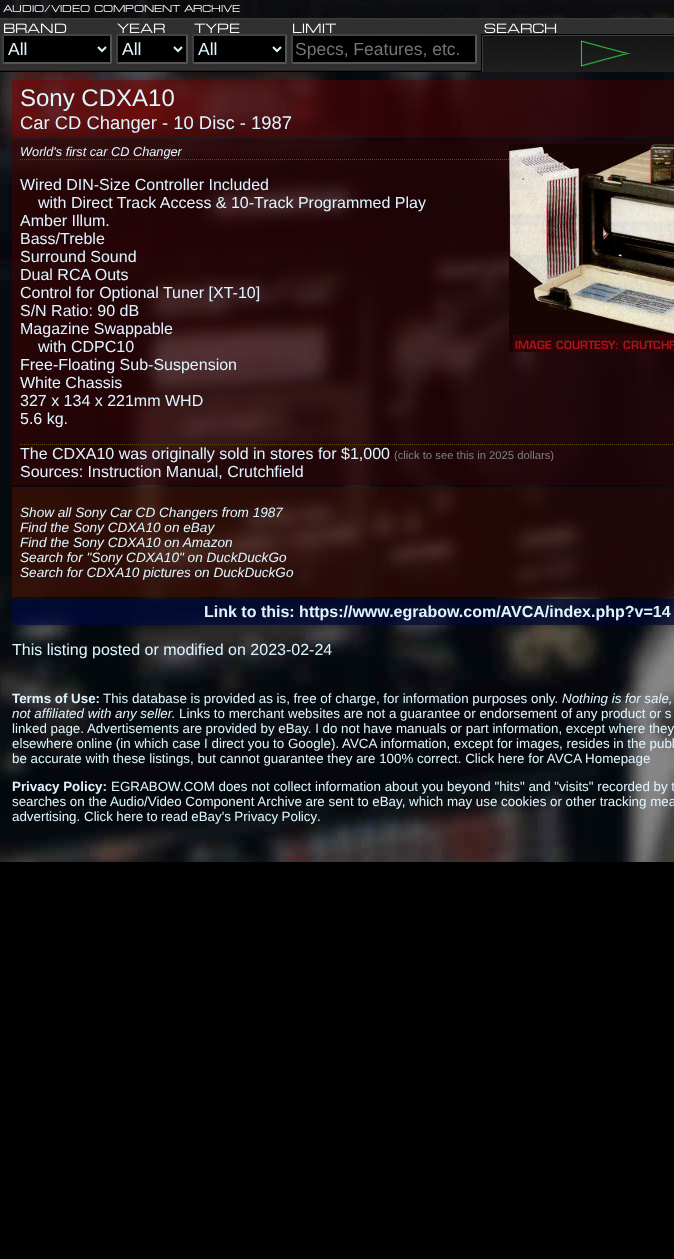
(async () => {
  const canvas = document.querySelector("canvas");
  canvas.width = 674;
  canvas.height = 1259;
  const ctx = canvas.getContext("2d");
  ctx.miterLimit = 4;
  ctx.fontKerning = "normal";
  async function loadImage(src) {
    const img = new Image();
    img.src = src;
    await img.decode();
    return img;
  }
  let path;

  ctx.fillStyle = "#000000";
  ctx.fillRect(0, 0, 674, 1259);
  ctx.drawImage(await loadImage("img/1.png"), 0, 0, 674, 18);
  ctx.drawImage(await loadImage("img/2.png"), 3, 5, 237, 7);
  ctx.drawImage(await loadImage("img/3.png"), 0, 18, 674, 53);
  ctx.drawImage(await loadImage("img/4.png"), 4, 23, 63, 10);
  ctx.drawImage(await loadImage("img/5.png"), 117, 23, 48, 10);
  ctx.drawImage(await loadImage("img/6.png"), 194, 23, 46, 10);
  ctx.drawImage(await loadImage("img/7.png"), 293, 23, 43, 10);
  ctx.drawImage(await loadImage("img/8.png"), 484, 23, 73, 11);
  ctx.fillRect(2, 34, 110, 30);
  ctx.fillStyle = "#444444";
  path = new Path2D("M2 34H112L110 36H4Z");
  ctx.fill(path);
  ctx.fillStyle = "#555555";
  path = new Path2D("M112 34V64L110 62V36Z");
  ctx.fill(path);
  path = new Path2D("M112 64H2L4 62H110Z");
  ctx.fill(path);
  ctx.fillStyle = "#404040";
  path = new Path2D("M2 64V34L4 36V62Z");
  ctx.fill(path);
  path = new Path2D("M98 47L102 51L106 47");
  ctx.strokeStyle = "#def5ff";
  ctx.lineWidth = 2;
  ctx.stroke(path);
  ctx.fillStyle = "#000000";
  ctx.fillRect(116, 34, 72, 30);
  ctx.fillStyle = "#444444";
  path = new Path2D("M116 34H188L186 36H118Z");
  ctx.fill(path);
  ctx.fillStyle = "#555555";
  path = new Path2D("M188 34V64L186 62V36Z");
  ctx.fill(path);
  path = new Path2D("M188 64H116L118 62H186Z");
  ctx.fill(path);
  ctx.fillStyle = "#404040";
  path = new Path2D("M116 64V34L118 36V62Z");
  ctx.fill(path);
  path = new Path2D("M174 47L178 51L182 47");
  ctx.stroke(path);
  ctx.fillStyle = "#000000";
  ctx.fillRect(192, 34, 95, 30);
  ctx.fillStyle = "#444444";
  path = new Path2D("M192 34H287L285 36H194Z");
  ctx.fill(path);
  ctx.fillStyle = "#555555";
  path = new Path2D("M287 34V64L285 62V36Z");
  ctx.fill(path);
  path = new Path2D("M287 64H192L194 62H285Z");
  ctx.fill(path);
  ctx.fillStyle = "#404040";
  path = new Path2D("M192 64V34L194 36V62Z");
  ctx.fill(path);
  path = new Path2D("M273 47L277 51L281 47");
  ctx.stroke(path);
  ctx.fillStyle = "#000000";
  ctx.fillRect(291, 34, 186, 30);
  ctx.fillStyle = "#444444";
  path = new Path2D("M291 34H477L475 36H293Z");
  ctx.fill(path);
  ctx.fillStyle = "#555555";
  path = new Path2D("M477 34V64L475 62V36Z");
  ctx.fill(path);
  path = new Path2D("M477 64H291L293 62H475Z");
  ctx.fill(path);
  ctx.fillStyle = "#404040";
  path = new Path2D("M291 64V34L293 36V62Z");
  ctx.fill(path);
  ctx.drawImage(await loadImage("img/9.png"), 481, 34, 193, 38);
  ctx.drawImage(await loadImage("img/10.png"), 0, 72, 674, 790);
  ctx.drawImage(await loadImage("img/11.png"), 12, 80, 662, 58);
  ctx.drawImage(await loadImage("img/12.png"), 12, 140, 662, 345);
  path = new Path2D("M20 159.5H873");
  ctx.strokeStyle = "#594e00";
  ctx.lineWidth = 1;
  ctx.setLineDash([1, 1]);
  ctx.stroke(path);
  ctx.drawImage(await loadImage("img/13.png"), 509, 144, 165, 208);
  path = new Path2D("M20 444.5H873");
  ctx.stroke(path);
  ctx.drawImage(await loadImage("img/14.png"), 12, 487, 662, 110);
  ctx.drawImage(await loadImage("img/15.png"), 12, 599, 662, 26);
  ctx.font = "17.5px Liberation Sans";
  ctx.fillStyle = "#def5ff";
  for (const [text, x, y] of [
    ["All", 8, 55],
    ["All", 122, 55],
    ["All", 198, 55],
  ]) {
    ctx.fillText(text, x, y);
  }
  ctx.fillStyle = "#757575";
  ctx.fillText("Specs, Features, etc.", 295, 55);
  ctx.font = "24px Liberation Sans";
  ctx.fillStyle = "#def5ff";
  ctx.fillText("Sony CDXA10", 20, 106);
  ctx.font = "18.4px Liberation Sans";
  ctx.fillText("Car CD Changer - 10 Disc - 1987", 20, 129);
  ctx.font = "italic 12.75px Liberation Sans";
  ctx.fillText("World's first car CD Changer", 20, 156);
  ctx.font = "16px Liberation Sans";
  for (const [text, x, y] of [
    ["Wired DIN-Size Controller Included", 20, 190],
    ["with Direct Track Access & 10-Track Programmed Play", 38, 208],
    ["Amber Illum.", 20, 226],
    ["Bass/Treble", 20, 244],
    ["Surround Sound", 20, 262],
    ["Dual RCA Outs", 20, 280],
    ["Control for Optional Tuner [XT-10]", 20, 298],
    ["S/N Ratio: 90 dB", 20, 316],
    ["Magazine Swappable", 20, 334],
    ["with CDPC10", 38, 352],
    ["Free-Floating Sub-Suspension", 20, 370],
    ["White Chassis", 20, 388],
    ["327 x 134 x 221mm WHD", 20, 406],
    ["5.6 kg.", 20, 424],
    ["The CDXA10 was originally sold in stores for $1,000", 20, 459],
  ]) {
    ctx.fillText(text, x, y);
  }
  ctx.font = "11.25px Liberation Sans";
  ctx.fillStyle = "#808080";
  ctx.fillText("(click to see this in 2025 dollars)", 394, 459);
  ctx.font = "16px Liberation Sans";
  ctx.fillStyle = "#def5ff";
  ctx.fillText("Sources: Instruction Manual, Crutchfield", 20, 477);
  ctx.font = "italic 13.6px Liberation Sans";
  for (const [text, x, y] of [
    ["Show all Sony Car CD Changers from 1987", 20, 517],
    ["Find the Sony CDXA10 on eBay", 20, 532],
    ["Find the Sony CDXA10 on Amazon", 20, 547],
    ["Search for \"Sony CDXA10\" on DuckDuckGo", 20, 562],
    ["Search for CDXA10 pictures on DuckDuckGo", 20, 577],
  ]) {
    ctx.fillText(text, x, y);
  }
  ctx.font = "bold 16px Liberation Sans";
  ctx.fillText("Link to this: https://www.egrabow.com/AVCA/index.php?v=14", 204, 617);
  ctx.font = "16px Liberation Sans";
  ctx.fillText("This listing posted or modified on 2023-02-24", 12, 655);
  ctx.font = "bold 13.35px Liberation Sans";
  ctx.fillText("Terms of Use:", 12, 703);
  ctx.font = "13.35px Liberation Sans";
  ctx.fillText("This database is provided as is, free of charge, for information purposes only.", 103, 703);
  ctx.font = "italic 13.35px Liberation Sans";
  ctx.fillText("Nothing is for sale,", 562, 703);
  ctx.fillText("not affiliated with any seller.", 12, 718);
  ctx.font = "13.35px Liberation Sans";
  for (const [text, x, y] of [
    ["Links to merchant websites are not a guarantee or endorsement of any product or s", 179, 718],
    ["linked page. Advertisements are provided by eBay. I do not have manuals or part information, except where they", 12, 733],
    ["elsewhere online (in which case I direct you to Google). AVCA information, except for images, resides in the publ", 12, 748],
    ["be accurate with these listings, but cannot guarantee they are 100% correct. Click here for AVCA Homepage", 12, 763],
  ]) {
    ctx.fillText(text, x, y);
  }
  ctx.font = "bold 13.35px Liberation Sans";
  ctx.fillText("Privacy Policy:", 12, 791);
  ctx.font = "13.35px Liberation Sans";
  for (const [text, x, y] of [
    ["EGRABOW.COM does not collect information about you beyond \"hits\" and \"visits\" recorded by t", 111, 791],
    ["searches on the Audio/Video Component Archive are sent to eBay, which may use cookies or other tracking mea", 12, 806],
    ["advertising.", 12, 821],
  ]) {
    ctx.fillText(text, x, y);
  }
  ctx.wordSpacing = "-0.25px";
  ctx.fillText("Click here to read eBay's Privacy Policy", 84, 821);
  ctx.wordSpacing = "0px";
  ctx.fillText(".", 317, 821);
})();
